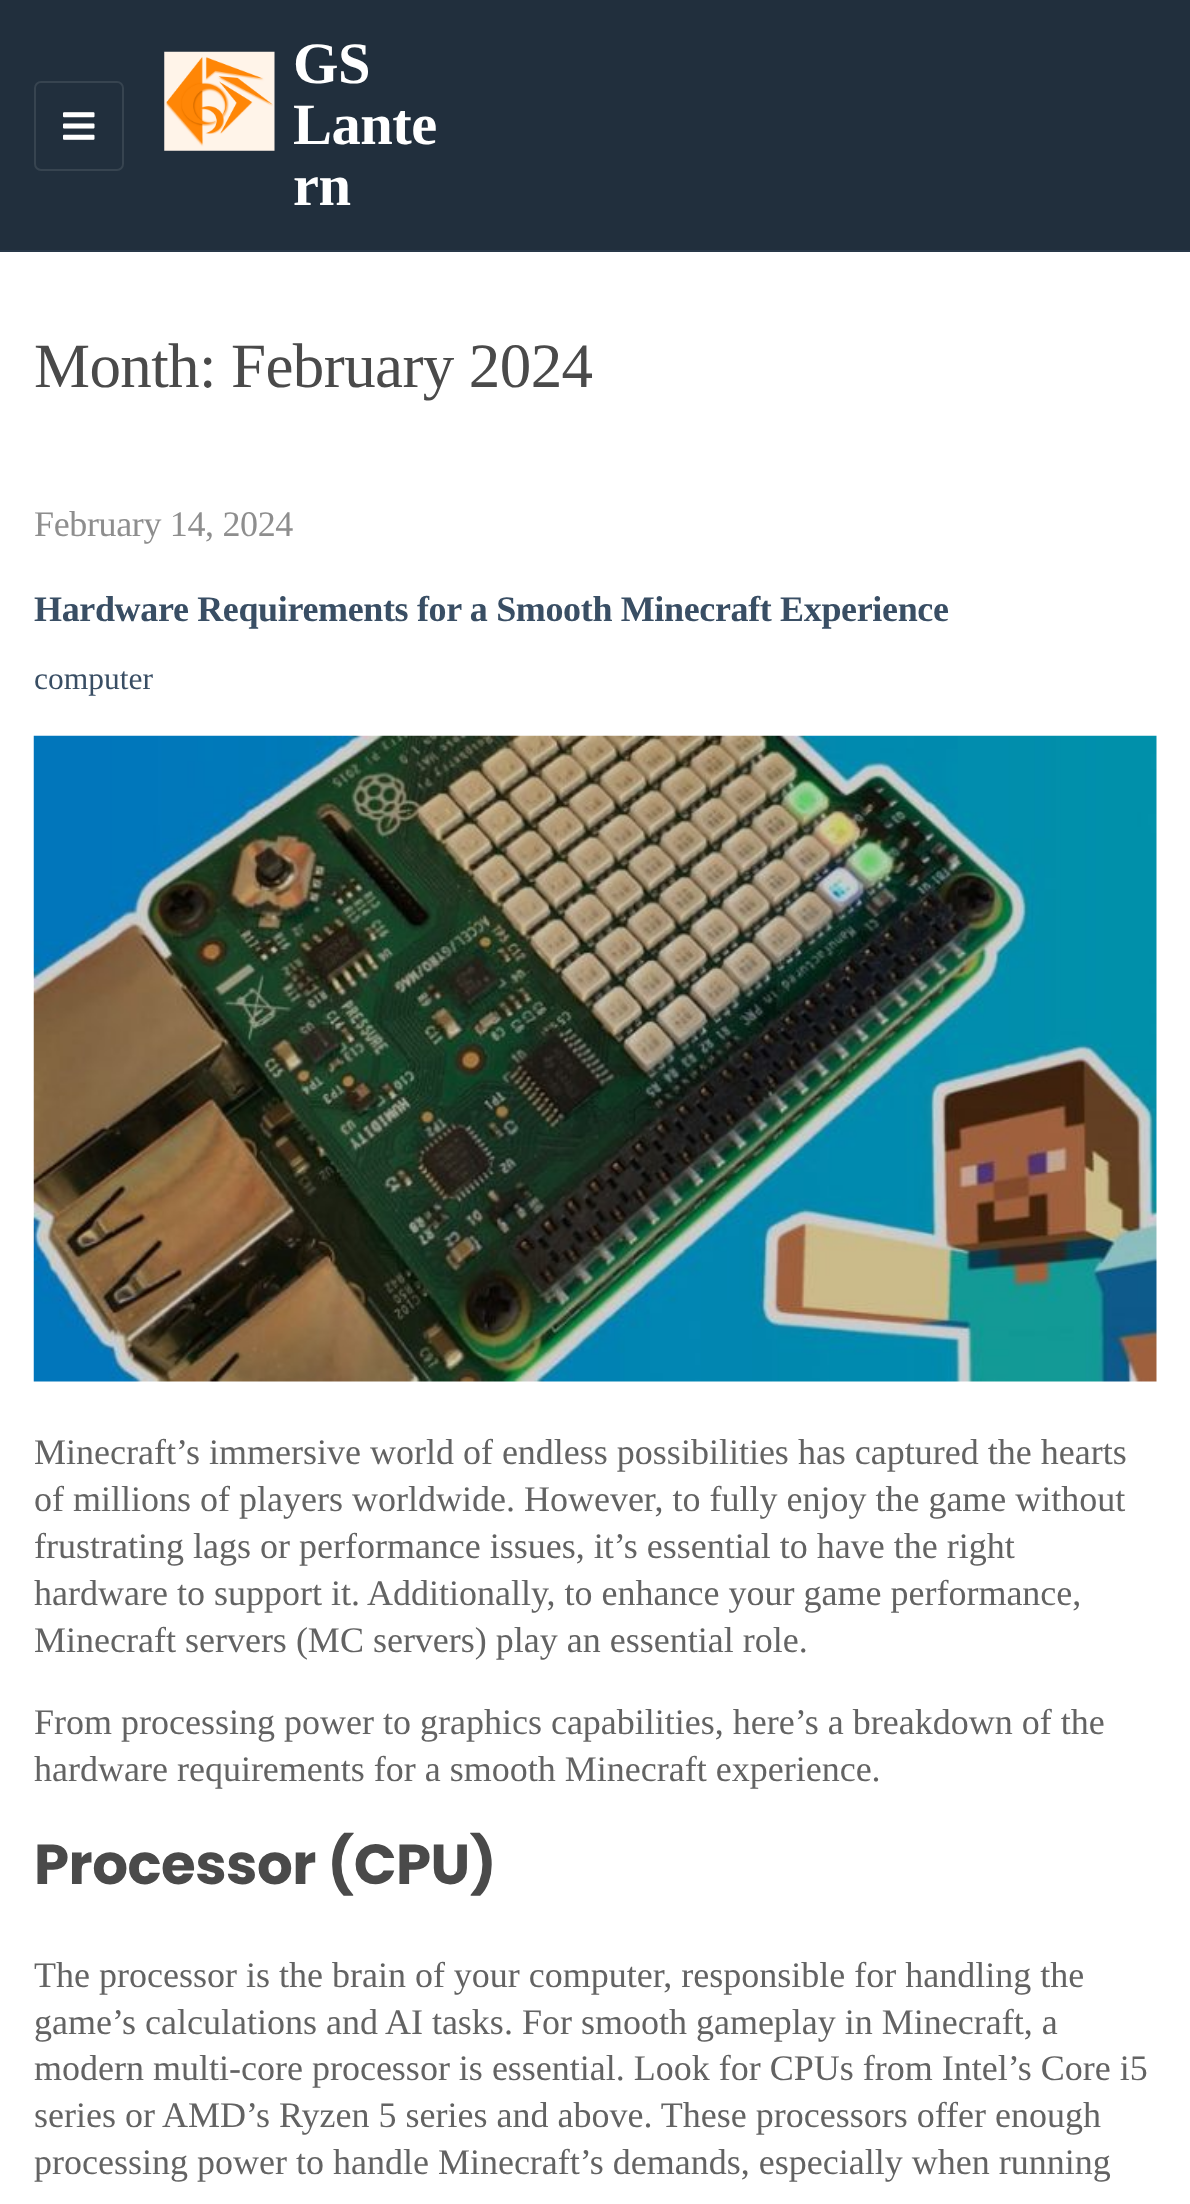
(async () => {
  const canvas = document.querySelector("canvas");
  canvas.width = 1190;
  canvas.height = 2204;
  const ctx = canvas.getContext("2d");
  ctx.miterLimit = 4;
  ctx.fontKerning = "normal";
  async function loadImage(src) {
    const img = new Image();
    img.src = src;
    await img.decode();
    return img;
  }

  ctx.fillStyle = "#ffffff";
  ctx.fillRect(0, 0, 1190, 2204);
  ctx.fillStyle = "#212f3d";
  ctx.fillRect(0, 0, 1190, 250);
  ctx.beginPath();
  ctx.roundRect(35, 82, 88, 88, 6);
  ctx.strokeStyle = "#374450";
  ctx.lineWidth = 2;
  ctx.stroke();
  ctx.drawImage(await loadImage("img/1.png"), 63, 112, 32, 28);
  ctx.drawImage(await loadImage("img/2.png"), 164, 51, 111, 100);
  ctx.fillStyle = "#283848";
  ctx.fillRect(0, 250, 1190, 2);
  ctx.drawImage(await loadImage("img/3.png"), 33, 735, 1124, 647);
  ctx.letterSpacing = "-0.5px";
  ctx.font = "bold 58.5px Liberation Serif";
  ctx.fillStyle = "#ffffff";
  for (const [text, x, y] of [
    ["GS", 293, 83],
    ["Lante", 293, 144],
    ["rn", 293, 205],
  ]) {
    ctx.fillText(text, x, y);
  }
  ctx.letterSpacing = "-0.6px";
  ctx.font = "63px Liberation Serif";
  ctx.fillStyle = "#4a4a4a";
  ctx.fillText("Month: February 2024", 34, 387);
  ctx.letterSpacing = "-0.35px";
  ctx.font = "36px Liberation Serif";
  ctx.fillStyle = "#8e8e8e";
  ctx.fillText("February 14, 2024", 34, 536);
  ctx.font = "bold 36px Liberation Serif";
  ctx.fillStyle = "#394e64";
  ctx.fillText("Hardware Requirements for a Smooth Minecraft Experience", 34, 621);
  ctx.letterSpacing = "0px";
  ctx.font = "31.5px Liberation Serif";
  ctx.fillText("computer", 34, 689);
  ctx.font = "36px Liberation Serif";
  ctx.fillStyle = "#636363";
  for (const [text, x, y] of [
    ["Minecraft’s immersive world of endless possibilities has captured the hearts", 34, 1464],
    ["of millions of players worldwide. However, to fully enjoy the game without", 34, 1511],
    ["frustrating lags or performance issues, it’s essential to have the right", 34, 1558],
    ["hardware to support it. Additionally, to enhance your game performance,", 34, 1605],
    ["Minecraft servers (MC servers) play an essential role.", 34, 1652],
    ["From processing power to graphics capabilities, here’s a breakdown of the", 34, 1734],
    ["hardware requirements for a smooth Minecraft experience.", 34, 1781],
  ]) {
    ctx.fillText(text, x, y);
  }
  ctx.letterSpacing = "-0.5px";
  ctx.font = "bold 56.25px Poppins";
  ctx.fillStyle = "#4a4a4a";
  ctx.fillText("Processor (CPU)", 34, 1884);
  ctx.letterSpacing = "0px";
  ctx.font = "36px Liberation Serif";
  ctx.fillStyle = "#636363";
  for (const [text, x, y] of [
    ["The processor is the brain of your computer, responsible for handling the", 34, 1987],
    ["game’s calculations and AI tasks. For smooth gameplay in Minecraft, a", 34, 2034],
    ["modern multi-core processor is essential. Look for CPUs from Intel’s Core i5", 34, 2080],
    ["series or AMD’s Ryzen 5 series and above. These processors offer enough", 34, 2127],
    ["processing power to handle Minecraft’s demands, especially when running", 34, 2174],
  ]) {
    ctx.fillText(text, x, y);
  }
})();
